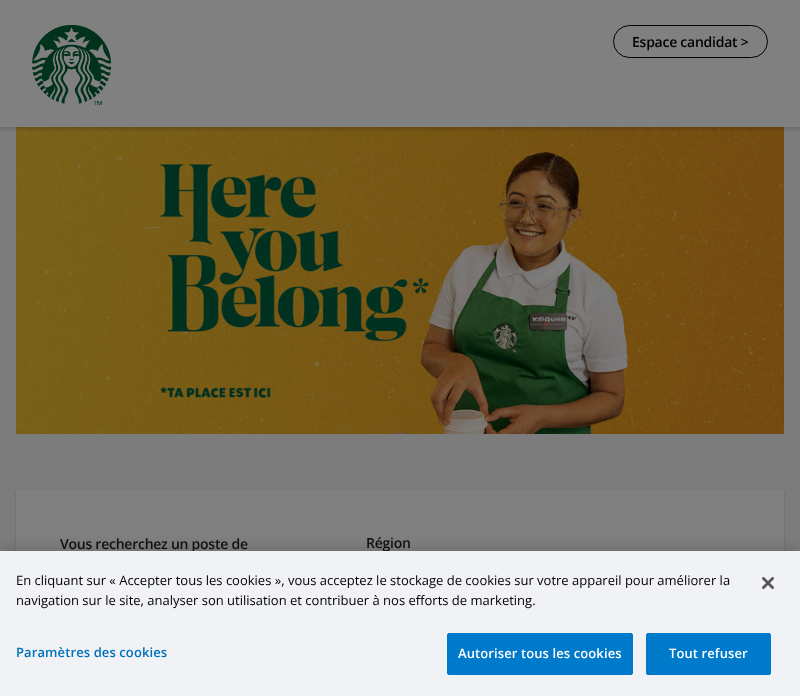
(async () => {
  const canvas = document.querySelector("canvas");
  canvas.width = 800;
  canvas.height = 696;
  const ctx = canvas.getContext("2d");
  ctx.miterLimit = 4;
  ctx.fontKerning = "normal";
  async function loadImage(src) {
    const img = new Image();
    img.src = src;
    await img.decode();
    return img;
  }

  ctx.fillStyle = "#7c7c7c";
  ctx.fillRect(0, 0, 800, 696);
  ctx.drawImage(await loadImage("img/2.png"), 16, 127, 768, 307);
  ctx.fillStyle = "rgba(0, 0, 0, 0.12)";
  ctx.filter = "blur(1.5px)";
  ctx.beginPath();
  ctx.rect(0, 3, 800, 127);
  ctx.fill();
  ctx.filter = "none";
  ctx.fillStyle = "#808080";
  ctx.fillRect(0, 0, 800, 127);
  ctx.drawImage(await loadImage("img/1.png"), 32, 25, 79, 80);
  ctx.beginPath();
  ctx.roundRect(613.5, 25.5, 154, 32, 16);
  ctx.strokeStyle = "#000000";
  ctx.stroke();
  ctx.fillStyle = "#666666";
  ctx.filter = "blur(1px)";
  ctx.beginPath();
  ctx.rect(16, 492, 768, 144);
  ctx.fill();
  ctx.filter = "none";
  ctx.fillStyle = "#808080";
  ctx.fillRect(16, 490, 768, 61);
  ctx.fillStyle = "rgba(0, 0, 0, 0.2)";
  ctx.filter = "blur(9px)";
  ctx.beginPath();
  ctx.rect(0, 551, 800, 145);
  ctx.fill();
  ctx.filter = "none";
  ctx.letterSpacing = "-0.25px";
  ctx.font = "600 14px Open Sans";
  ctx.fillStyle = "#000000";
  ctx.fillText("Espace candidat >", 632, 47);
  ctx.fillStyle = "#101010";
  ctx.fillText("Vous recherchez un poste de", 60, 549);
  ctx.fillText("Région", 366, 548);
  ctx.fillStyle = "#f0f2f5";
  ctx.fillRect(0, 551, 800, 145);
  ctx.letterSpacing = "0px";
  ctx.font = "13px Open Sans";
  ctx.fillStyle = "#000000";
  ctx.fillText("En cliquant sur « Accepter tous les cookies », vous acceptez le stockage de cookies sur votre appareil pour améliorer la", 16, 585);
  ctx.fillText("navigation sur le site, analyser son utilisation et contribuer à nos efforts de marketing.", 16, 605);
  ctx.letterSpacing = "0.1px";
  ctx.font = "600 13px Open Sans";
  ctx.fillStyle = "#0071bb";
  ctx.fillText("Paramètres des cookies", 16, 657);
  ctx.fillStyle = "#007aca";
  ctx.beginPath();
  ctx.roundRect(447.5, 633.5, 185, 41, 1.5);
  ctx.fill();
  ctx.strokeStyle = "#007aca";
  ctx.stroke();
  ctx.fillStyle = "#ffffff";
  ctx.fillText("Autoriser tous les cookies", 458, 658);
  ctx.fillStyle = "#007aca";
  ctx.beginPath();
  ctx.roundRect(646.5, 633.5, 124, 41, 1.5);
  ctx.fill();
  ctx.stroke();
  ctx.fillStyle = "#ffffff";
  ctx.fillText("Tout refuser", 669, 658);
  ctx.drawImage(await loadImage("img/3.png"), 762, 577, 12, 12);
})();
